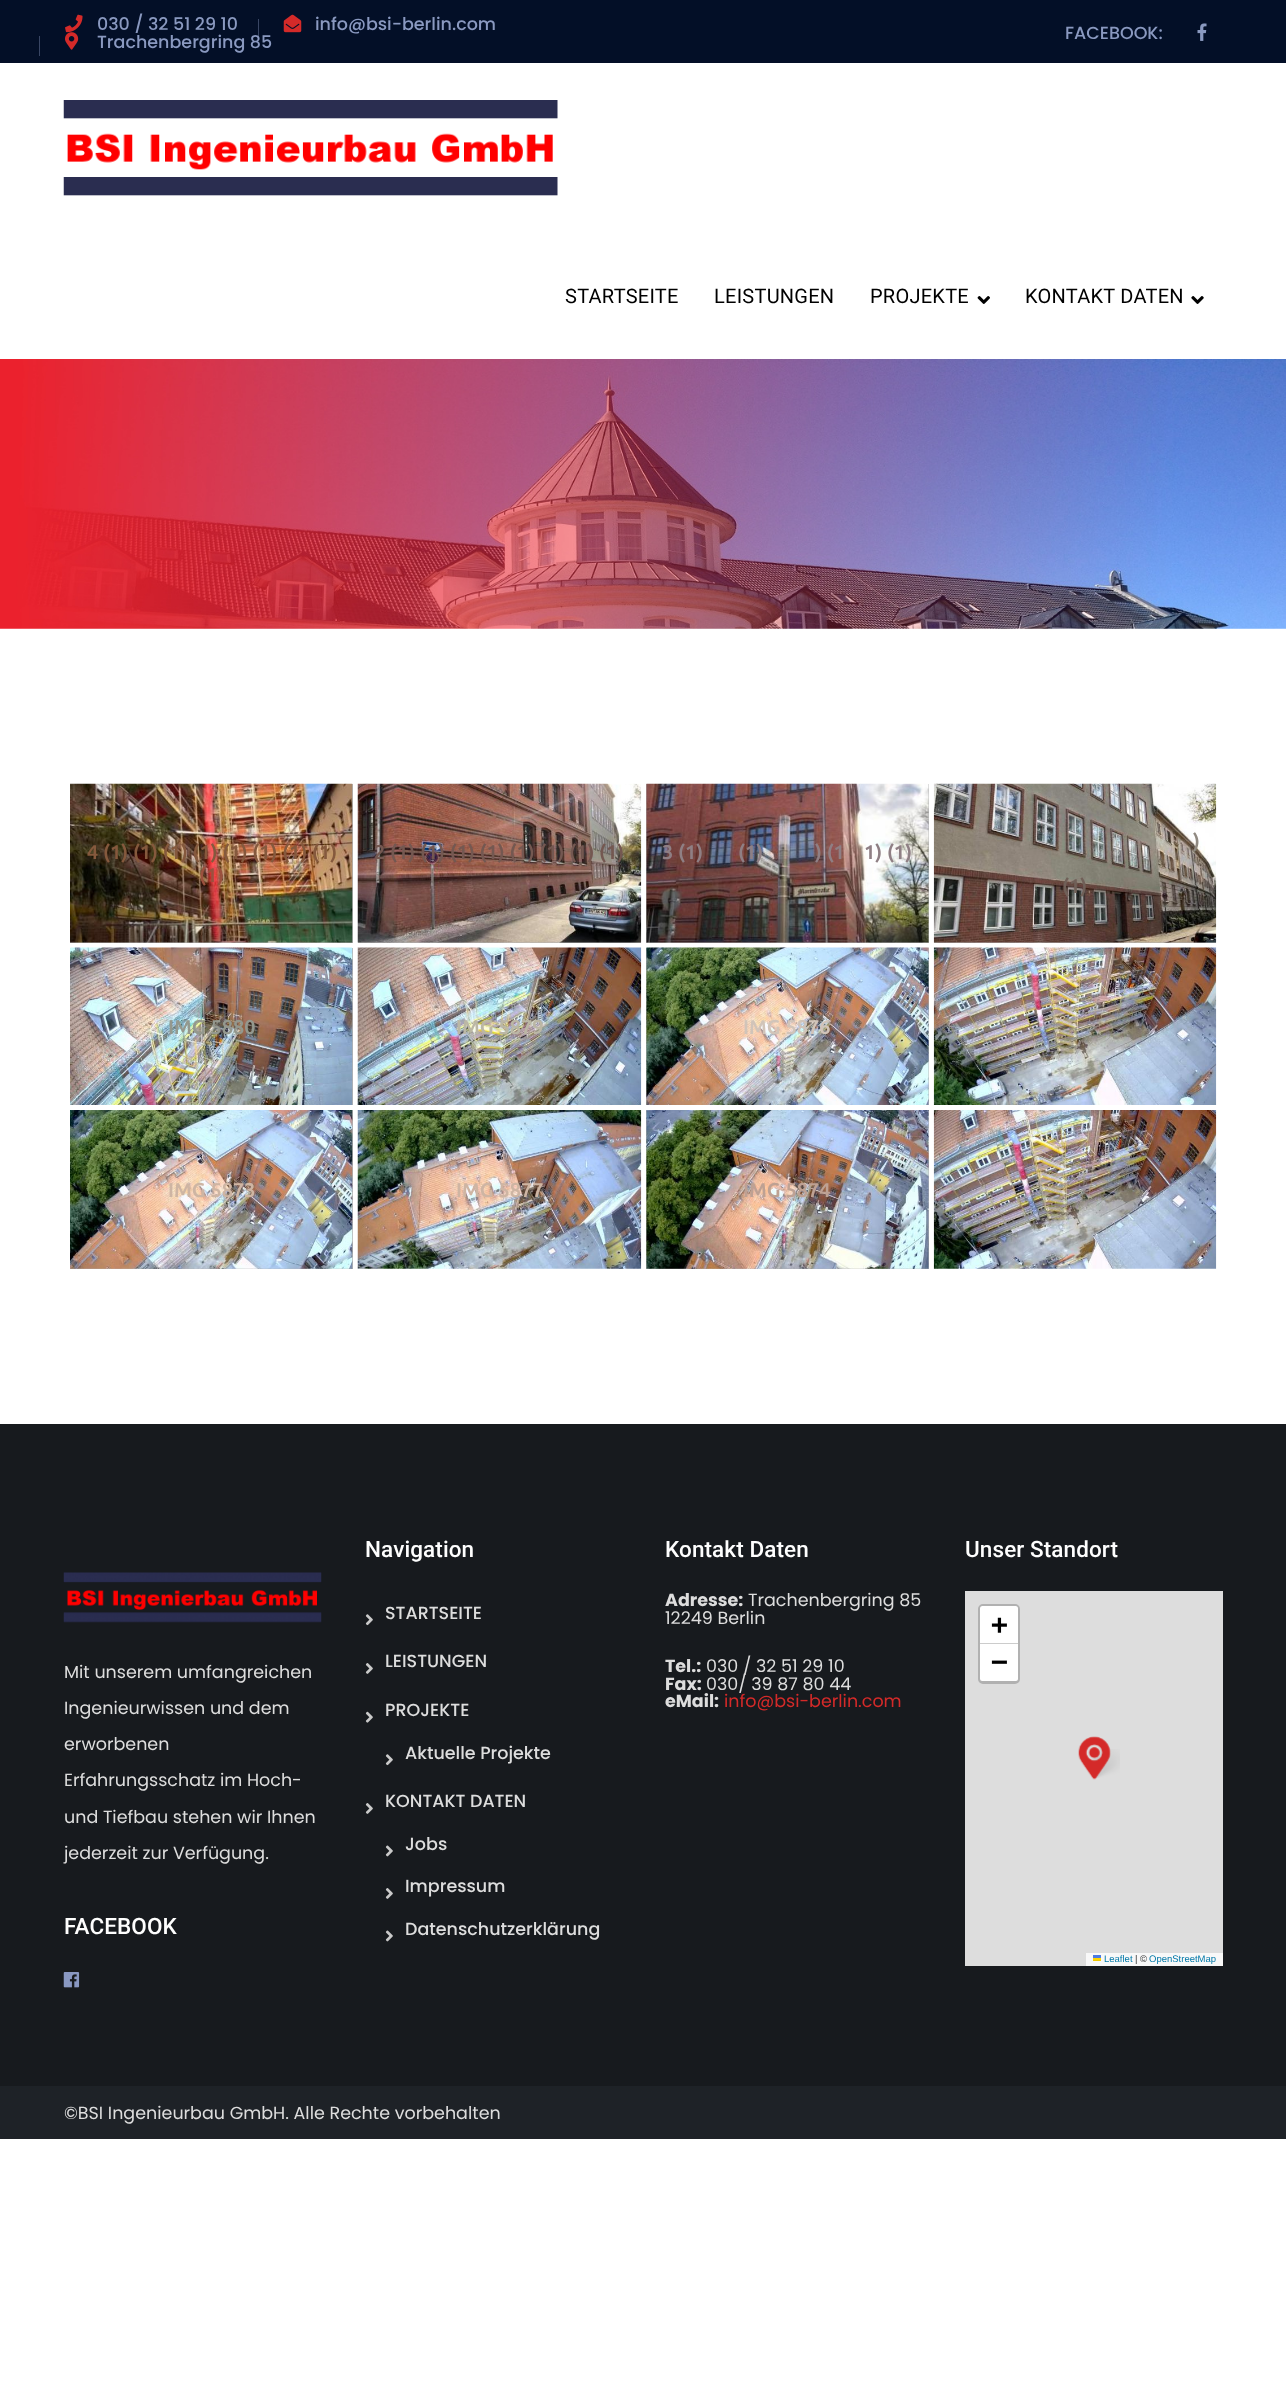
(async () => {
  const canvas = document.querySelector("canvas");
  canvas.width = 1286;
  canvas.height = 2382;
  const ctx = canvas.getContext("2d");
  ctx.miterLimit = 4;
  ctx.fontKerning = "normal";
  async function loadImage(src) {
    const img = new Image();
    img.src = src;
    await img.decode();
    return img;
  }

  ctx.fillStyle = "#ffffff";
  ctx.fillRect(0, 0, 1286, 2382);
  ctx.fillStyle = "#030f27";
  ctx.fillRect(0, 0, 1286, 63);
  ctx.drawImage(await loadImage("img/1.png"), 65, 14, 18, 19);
  ctx.fillStyle = "#394664";
  ctx.fillRect(258, 19, 1, 20);
  ctx.drawImage(await loadImage("img/2.png"), 283, 14, 19, 19);
  ctx.fillRect(39, 36, 1, 20);
  ctx.drawImage(await loadImage("img/3.png"), 65, 32, 14, 18);
  ctx.drawImage(await loadImage("img/4.png"), 1197, 23, 10, 18);
  ctx.drawImage(await loadImage("img/5.png"), 63, 100, 495, 96);
  ctx.drawImage(await loadImage("img/6.png"), 977, 296, 13, 8);
  ctx.drawImage(await loadImage("img/7.png"), 1191, 296, 13, 8);
  ctx.drawImage(await loadImage("img/8.png"), 0, 359, 1286, 270);
  ctx.fillStyle = "#b3b3b3";
  ctx.fillRect(70, 784, 283, 159);
  ctx.drawImage(await loadImage("img/9.png"), 70, 783, 283, 160);
  ctx.fillRect(358, 942, 283, 1);
  ctx.drawImage(await loadImage("img/10.png"), 357, 783, 285, 160);
  ctx.fillRect(646, 784, 283, 159);
  ctx.drawImage(await loadImage("img/11.png"), 646, 783, 283, 160);
  ctx.fillRect(934, 942, 282, 1);
  ctx.drawImage(await loadImage("img/12.png"), 933, 783, 284, 160);
  ctx.fillRect(352, 948, 1, 157);
  ctx.drawImage(await loadImage("img/13.png"), 70, 947, 283, 158);
  ctx.drawImage(await loadImage("img/14.png"), 357, 947, 285, 158);
  ctx.fillRect(646, 948, 283, 157);
  ctx.drawImage(await loadImage("img/15.png"), 646, 947, 283, 158);
  ctx.drawImage(await loadImage("img/16.png"), 933, 947, 284, 158);
  ctx.fillRect(70, 1110, 283, 159);
  ctx.drawImage(await loadImage("img/17.png"), 70, 1110, 283, 159);
  ctx.drawImage(await loadImage("img/18.png"), 357, 1110, 285, 159);
  ctx.fillRect(646, 1110, 283, 159);
  ctx.drawImage(await loadImage("img/19.png"), 646, 1110, 283, 159);
  ctx.drawImage(await loadImage("img/20.png"), 933, 1110, 284, 159);
  ctx.fillStyle = "#171a1e";
  ctx.fillRect(0, 1424, 1286, 662);
  ctx.drawImage(await loadImage("img/21.png"), 63, 1572, 259, 51);
  ctx.drawImage(await loadImage("img/22.png"), 63, 1972, 17, 16);
  ctx.drawImage(await loadImage("img/23.png"), 365, 1614, 8, 12);
  ctx.drawImage(await loadImage("img/24.png"), 365, 1663, 8, 11);
  ctx.drawImage(await loadImage("img/25.png"), 365, 1711, 8, 12);
  ctx.drawImage(await loadImage("img/23.png"), 385, 1754, 8, 12);
  ctx.drawImage(await loadImage("img/24.png"), 365, 1803, 8, 11);
  ctx.drawImage(await loadImage("img/26.png"), 385, 1845, 8, 12);
  ctx.drawImage(await loadImage("img/24.png"), 385, 1888, 8, 11);
  ctx.drawImage(await loadImage("img/26.png"), 385, 1930, 8, 12);
  ctx.fillStyle = "#dddddd";
  ctx.fillRect(965, 1591, 258, 375);
  ctx.beginPath();
  ctx.roundRect(979.5, 1605.5, 39, 77, 3.5);
  ctx.strokeStyle = "#b1b1b1";
  ctx.lineWidth = 3;
  ctx.stroke();
  ctx.fillStyle = "#ffffff";
  ctx.beginPath();
  ctx.roundRect(980, 1606, 38, 38, [2.5, 2.5, 0, 0]);
  ctx.fill();
  ctx.fillStyle = "#cccccc";
  ctx.fillRect(980, 1643, 38, 1);
  ctx.fillStyle = "#ffffff";
  ctx.beginPath();
  ctx.roundRect(980, 1644, 38, 37, [0, 0, 2.5, 2.5]);
  ctx.fill();
  ctx.fillStyle = "#f8f8f8";
  ctx.fillRect(1086, 1953, 137, 13);
  ctx.drawImage(await loadImage("img/27.png"), 1093, 1955, 8, 6);
  ctx.drawImage(await loadImage("img/29.png"), 1092, 1749, 28, 29);
  ctx.drawImage(await loadImage("img/28.png"), 1078, 1736, 33, 44);
  ctx.fillStyle = "#1e2227";
  ctx.fillRect(0, 2086, 1286, 53);
  ctx.font = "500 17.5px Poppins";
  ctx.fillStyle = "#8a99c0";
  for (const [text, x, y] of [
    ["030 / 32 51 29 10", 97, 30],
    ["info@bsi-berlin.com", 315, 30],
    ["Trachenbergring 85", 97, 48],
    ["FACEBOOK:", 1065, 39],
  ]) {
    ctx.fillText(text, x, y);
  }
  ctx.letterSpacing = "0.25px";
  ctx.font = "20px Roboto";
  ctx.fillStyle = "#000000";
  for (const [text, x, y] of [
    ["STARTSEITE", 565, 303],
    ["LEISTUNGEN", 714, 303],
    ["PROJEKTE", 870, 303],
    ["KONTAKT DATEN", 1025, 303],
  ]) {
    ctx.fillText(text, x, y);
  }
  ctx.letterSpacing = "0px";
  ctx.font = "bold 20px Ubuntu";
  ctx.fillStyle = "#85593d";
  ctx.fillText("4 (1) (1) (1) (1) (1) (1) (1) (1)", 87, 859);
  ctx.fillStyle = "#9b513e";
  ctx.fillText("(1)", 199, 882);
  ctx.fillStyle = "#745851";
  ctx.fillText("2 (1) (1) (1) (1) (1) (1) (1) (1)", 374, 859);
  ctx.fillStyle = "#8f7f84";
  for (const [text, x, y] of [
    ["3 (1)", 662, 859],
    ["(1)", 738, 859],
    [") (1", 815, 859],
    ["1) (1)", 864, 859],
  ]) {
    ctx.fillText(text, x, y);
  }
  ctx.fillStyle = "#8f8981";
  ctx.fillText(")", 1193, 848);
  ctx.fillStyle = "#706058";
  ctx.fillText("(1)", 1062, 893);
  ctx.fillStyle = "#94988e";
  ctx.fillText("IMG 5880", 168, 1034);
  ctx.fillStyle = "#bbb7a5";
  ctx.fillText("IMG 5879", 456, 1034);
  ctx.fillStyle = "#d1c4b9";
  ctx.fillText("IMG 5876", 743, 1034);
  ctx.fillStyle = "#ceb5a3";
  ctx.fillText("IMG 5873", 168, 1197);
  ctx.fillText("IMG 5877", 456, 1197);
  ctx.fillStyle = "#bea193";
  ctx.fillText("IMG 5874", 743, 1197);
  ctx.font = "17.5px Poppins";
  ctx.fillStyle = "#dddddd";
  for (const [text, x, y] of [
    ["Mit unserem umfangreichen", 64, 1678],
    ["Ingenieurwissen und dem", 64, 1714],
    ["erworbenen", 64, 1750],
    ["Erfahrungsschatz im Hoch-", 64, 1786],
    ["und Tiefbau stehen wir Ihnen", 64, 1823],
    ["jederzeit zur Verfügung.", 64, 1859],
  ]) {
    ctx.fillText(text, x, y);
  }
  ctx.letterSpacing = "0.1px";
  ctx.font = "500 22.5px Roboto";
  ctx.fillStyle = "#fefefe";
  ctx.fillText("FACEBOOK", 64, 1934);
  ctx.fillText("Navigation", 365, 1557);
  ctx.letterSpacing = "0px";
  ctx.font = "500 17.5px Poppins";
  ctx.fillStyle = "#dddddd";
  for (const [text, x, y] of [
    ["STARTSEITE", 385, 1619],
    ["LEISTUNGEN", 385, 1667],
    ["PROJEKTE", 385, 1716],
    ["Aktuelle Projekte", 405, 1759],
    ["KONTAKT DATEN", 385, 1807],
    ["Jobs", 405, 1850],
    ["Impressum", 405, 1892],
    ["Datenschutzerklärung", 405, 1935],
  ]) {
    ctx.fillText(text, x, y);
  }
  ctx.letterSpacing = "0.1px";
  ctx.font = "500 22.5px Roboto";
  ctx.fillStyle = "#fefefe";
  ctx.fillText("Kontakt Daten", 665, 1557);
  ctx.letterSpacing = "0px";
  ctx.font = "bold 17.5px Poppins";
  ctx.fillStyle = "#dddddd";
  ctx.fillText("Adresse:", 665, 1606);
  ctx.font = "17.5px Poppins";
  ctx.fillText("Trachenbergring 85", 748, 1606);
  ctx.fillText("12249 Berlin", 665, 1624);
  ctx.font = "bold 17.5px Poppins";
  ctx.fillText("Tel.:", 665, 1672);
  ctx.font = "17.5px Poppins";
  ctx.fillText("030 / 32 51 29 10", 706, 1672);
  ctx.font = "bold 17.5px Poppins";
  ctx.fillText("Fax:", 665, 1690);
  ctx.font = "17.5px Poppins";
  ctx.fillText("030/ 39 87 80 44", 706, 1690);
  ctx.font = "bold 17.5px Poppins";
  ctx.fillText("eMail:", 665, 1707);
  ctx.font = "17.5px Poppins";
  ctx.fillStyle = "#d42a29";
  ctx.fillText("info@bsi-berlin.com", 724, 1707);
  ctx.letterSpacing = "0.1px";
  ctx.font = "500 22.5px Roboto";
  ctx.fillStyle = "#fefefe";
  ctx.fillText("Unser Standort", 965, 1557);
  ctx.letterSpacing = "0px";
  ctx.font = "bold 28px DejaVu Sans Mono";
  ctx.fillStyle = "#000000";
  ctx.fillText("+", 991, 1634);
  ctx.fillText("−", 991, 1671);
  ctx.font = "9.5px Liberation Sans";
  ctx.fillStyle = "#0078a8";
  ctx.fillText("Leaflet", 1104, 1962);
  ctx.fillStyle = "#333333";
  ctx.fillText("| ©", 1135, 1962);
  ctx.fillStyle = "#0078a8";
  ctx.fillText("OpenStreetMap", 1149, 1962);
  ctx.font = "17.5px Poppins";
  ctx.fillStyle = "#dddddd";
  ctx.fillText("©BSI Ingenieurbau GmbH. Alle Rechte vorbehalten", 64, 2119);
})();
